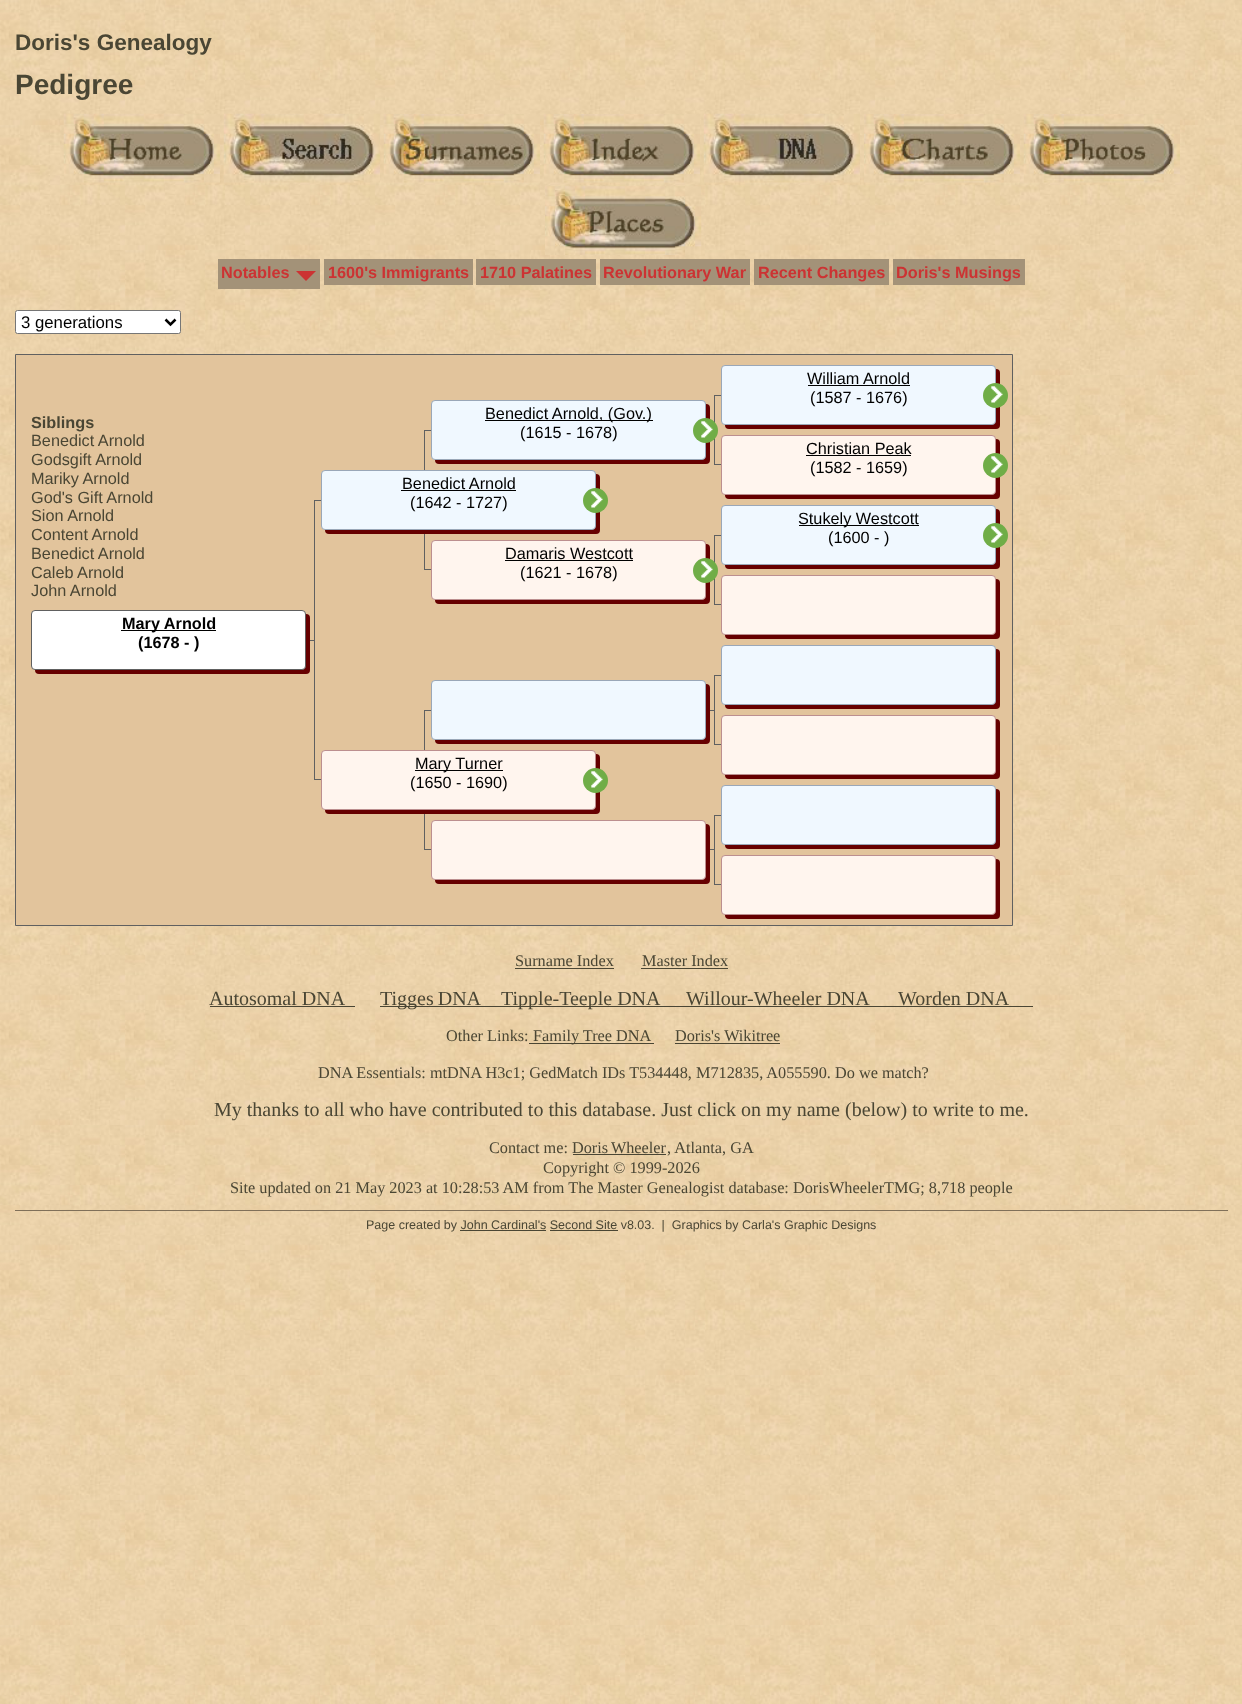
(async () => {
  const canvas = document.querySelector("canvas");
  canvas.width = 1242;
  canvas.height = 1704;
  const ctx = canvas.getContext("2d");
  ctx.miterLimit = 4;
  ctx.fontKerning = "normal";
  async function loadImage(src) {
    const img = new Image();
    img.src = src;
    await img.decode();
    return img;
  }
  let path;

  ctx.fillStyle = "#ffffff";
  ctx.fillRect(0, 0, 1242, 1704);
  ctx.drawImage(await loadImage("img/1.png"), 0, 0, 1242, 1704);
  ctx.drawImage(await loadImage("img/2.png"), 63, 113, 157, 70);
  ctx.drawImage(await loadImage("img/3.png"), 223, 113, 157, 70);
  ctx.drawImage(await loadImage("img/4.png"), 383, 114, 157, 69);
  ctx.drawImage(await loadImage("img/5.png"), 543, 114, 157, 69);
  ctx.drawImage(await loadImage("img/6.png"), 703, 113, 157, 70);
  ctx.drawImage(await loadImage("img/7.png"), 864, 114, 156, 69);
  ctx.drawImage(await loadImage("img/8.png"), 1023, 114, 157, 69);
  ctx.drawImage(await loadImage("img/9.png"), 545, 186, 157, 69);
  ctx.fillStyle = "#a39278";
  ctx.fillRect(218, 259, 102, 30);
  ctx.fillStyle = "#cc3333";
  path = new Path2D("M296 271H316L306 281Z");
  ctx.fill(path);
  for (const [x, y, w, h, color] of [
    [324, 259, 149, 26, "#a39278"],
    [476, 259, 120, 26, "#a39278"],
    [600, 259, 150, 26, "#a39278"],
    [754, 259, 135, 26, "#a39278"],
    [893, 259, 132, 26, "#a39278"],
  ]) {
    ctx.fillStyle = color;
    ctx.fillRect(x, y, w, h);
  }
  ctx.fillStyle = "#ffffff";
  ctx.beginPath();
  ctx.roundRect(15.5, 310.5, 165, 23, 2);
  ctx.fill();
  ctx.strokeStyle = "#767676";
  ctx.stroke();
  path = new Path2D("M165.5 319.5L170.5 324.5L175.5 319.5");
  ctx.strokeStyle = "#000000";
  ctx.lineWidth = 2.5;
  ctx.stroke(path);
  ctx.fillStyle = "#e2c49c";
  ctx.beginPath();
  ctx.rect(15.5, 354.5, 997, 571);
  ctx.fill();
  ctx.strokeStyle = "#606060";
  ctx.lineWidth = 1;
  ctx.stroke();
  ctx.fillStyle = "#660000";
  ctx.filter = "blur(0.5px)";
  ctx.beginPath();
  ctx.roundRect(725, 369, 275, 60, 4);
  ctx.fill();
  ctx.filter = "none";
  ctx.fillStyle = "#f0f8ff";
  ctx.beginPath();
  ctx.roundRect(721.5, 365.5, 274, 59, 3.5);
  ctx.fill();
  ctx.strokeStyle = "#9aa7b8";
  ctx.stroke();
  ctx.fillStyle = "#000000";
  ctx.fillRect(808, 385, 102, 1);
  ctx.fillStyle = "#70ad47";
  ctx.beginPath();
  ctx.arc(995.5, 395.5, 12.5, 0, Math.PI * 2);
  ctx.fill();
  ctx.drawImage(await loadImage("img/10.png"), 991, 386, 12, 17);
  for (const [x, y, w, h, color] of [
    [424, 430, 7, 1, "#606060"],
    [424, 569, 7, 1, "#606060"],
    [424, 430, 1, 140, "#606060"],
  ]) {
    ctx.fillStyle = color;
    ctx.fillRect(x, y, w, h);
  }
  ctx.fillStyle = "#660000";
  ctx.filter = "blur(0.5px)";
  ctx.beginPath();
  ctx.roundRect(435, 404, 275, 60, 4);
  ctx.fill();
  ctx.filter = "none";
  ctx.fillStyle = "#f0f8ff";
  ctx.beginPath();
  ctx.roundRect(431.5, 400.5, 274, 59, 3.5);
  ctx.fill();
  ctx.stroke();
  for (const [x, y, w, h, color] of [
    [485, 420, 168, 1, "#000000"],
    [714, 395, 7, 1, "#606060"],
    [714, 464, 7, 1, "#606060"],
    [714, 395, 1, 70, "#606060"],
  ]) {
    ctx.fillStyle = color;
    ctx.fillRect(x, y, w, h);
  }
  ctx.fillStyle = "#70ad47";
  ctx.beginPath();
  ctx.arc(705.5, 430.5, 12.5, 0, Math.PI * 2);
  ctx.fill();
  ctx.drawImage(await loadImage("img/10.png"), 701, 421, 12, 17);
  ctx.fillStyle = "#660000";
  ctx.filter = "blur(0.5px)";
  ctx.beginPath();
  ctx.roundRect(725, 439, 275, 60, 4);
  ctx.fill();
  ctx.filter = "none";
  ctx.fillStyle = "#fff5ee";
  ctx.beginPath();
  ctx.roundRect(721.5, 435.5, 274, 59, 3.5);
  ctx.fill();
  ctx.strokeStyle = "#bc8f8f";
  ctx.stroke();
  ctx.fillStyle = "#000000";
  ctx.fillRect(806, 455, 105, 1);
  ctx.fillStyle = "#70ad47";
  ctx.beginPath();
  ctx.arc(995.5, 465.5, 12.5, 0, Math.PI * 2);
  ctx.fill();
  ctx.drawImage(await loadImage("img/10.png"), 991, 456, 12, 17);
  ctx.fillStyle = "#660000";
  ctx.filter = "blur(0.5px)";
  ctx.beginPath();
  ctx.roundRect(325, 474, 275, 60, 4);
  ctx.fill();
  ctx.filter = "none";
  ctx.fillStyle = "#f0f8ff";
  ctx.beginPath();
  ctx.roundRect(321.5, 470.5, 274, 59, 3.5);
  ctx.fill();
  ctx.strokeStyle = "#9aa7b8";
  ctx.stroke();
  ctx.fillStyle = "#000000";
  ctx.fillRect(401, 490, 115, 1);
  ctx.fillStyle = "#70ad47";
  ctx.beginPath();
  ctx.arc(595.5, 500.5, 12.5, 0, Math.PI * 2);
  ctx.fill();
  ctx.drawImage(await loadImage("img/10.png"), 591, 491, 12, 17);
  for (const [x, y, w, h, color] of [
    [314, 500, 7, 1, "#606060"],
    [314, 779, 7, 1, "#606060"],
    [314, 500, 1, 280, "#606060"],
  ]) {
    ctx.fillStyle = color;
    ctx.fillRect(x, y, w, h);
  }
  ctx.fillStyle = "#660000";
  ctx.filter = "blur(0.5px)";
  ctx.beginPath();
  ctx.roundRect(725, 509, 275, 60, 4);
  ctx.fill();
  ctx.filter = "none";
  ctx.fillStyle = "#f0f8ff";
  ctx.beginPath();
  ctx.roundRect(721.5, 505.5, 274, 59, 3.5);
  ctx.fill();
  ctx.stroke();
  ctx.fillStyle = "#000000";
  ctx.fillRect(799, 525, 120, 1);
  ctx.fillStyle = "#70ad47";
  ctx.beginPath();
  ctx.arc(995.5, 535.5, 12.5, 0, Math.PI * 2);
  ctx.fill();
  ctx.drawImage(await loadImage("img/10.png"), 991, 526, 12, 17);
  ctx.fillStyle = "#660000";
  ctx.filter = "blur(0.5px)";
  ctx.beginPath();
  ctx.roundRect(435, 544, 275, 60, 4);
  ctx.fill();
  ctx.filter = "none";
  ctx.fillStyle = "#fff5ee";
  ctx.beginPath();
  ctx.roundRect(431.5, 540.5, 274, 59, 3.5);
  ctx.fill();
  ctx.strokeStyle = "#bc8f8f";
  ctx.stroke();
  for (const [x, y, w, h, color] of [
    [505, 560, 128, 1, "#000000"],
    [714, 535, 7, 1, "#606060"],
    [714, 604, 7, 1, "#606060"],
    [714, 535, 1, 70, "#606060"],
  ]) {
    ctx.fillStyle = color;
    ctx.fillRect(x, y, w, h);
  }
  ctx.fillStyle = "#70ad47";
  ctx.beginPath();
  ctx.arc(705.5, 570.5, 12.5, 0, Math.PI * 2);
  ctx.fill();
  ctx.drawImage(await loadImage("img/10.png"), 701, 561, 12, 17);
  ctx.fillStyle = "#606060";
  ctx.fillRect(306, 640, 8, 1);
  ctx.fillStyle = "#660000";
  ctx.filter = "blur(0.5px)";
  ctx.beginPath();
  ctx.roundRect(35, 614, 275, 60, 4);
  ctx.fill();
  ctx.filter = "none";
  ctx.fillStyle = "#ffffff";
  ctx.beginPath();
  ctx.roundRect(31.5, 610.5, 274, 59, 3.5);
  ctx.fill();
  ctx.strokeStyle = "#606060";
  ctx.stroke();
  ctx.fillStyle = "#000000";
  ctx.fillRect(121, 630, 95, 1);
  ctx.fillStyle = "#660000";
  ctx.filter = "blur(0.5px)";
  ctx.beginPath();
  ctx.roundRect(725, 579, 275, 60, 4);
  ctx.fill();
  ctx.filter = "none";
  ctx.fillStyle = "#fff5ee";
  ctx.beginPath();
  ctx.roundRect(721.5, 575.5, 274, 59, 3.5);
  ctx.fill();
  ctx.strokeStyle = "#bc8f8f";
  ctx.stroke();
  ctx.fillStyle = "#606060";
  ctx.fillRect(424, 710, 290, 1);
  ctx.fillStyle = "#660000";
  ctx.filter = "blur(0.5px)";
  ctx.beginPath();
  ctx.roundRect(435, 684, 275, 60, 4);
  ctx.fill();
  ctx.filter = "none";
  ctx.fillStyle = "#f0f8ff";
  ctx.beginPath();
  ctx.roundRect(431.5, 680.5, 274, 59, 3.5);
  ctx.fill();
  ctx.strokeStyle = "#9aa7b8";
  ctx.stroke();
  for (const [x, y, w, h, color] of [
    [714, 675, 7, 1, "#606060"],
    [714, 744, 7, 1, "#606060"],
    [714, 675, 1, 70, "#606060"],
  ]) {
    ctx.fillStyle = color;
    ctx.fillRect(x, y, w, h);
  }
  ctx.fillStyle = "#660000";
  ctx.filter = "blur(0.5px)";
  ctx.beginPath();
  ctx.roundRect(725, 649, 275, 60, 4);
  ctx.fill();
  ctx.filter = "none";
  ctx.fillStyle = "#f0f8ff";
  ctx.beginPath();
  ctx.roundRect(721.5, 645.5, 274, 59, 3.5);
  ctx.fill();
  ctx.stroke();
  ctx.fillStyle = "#606060";
  ctx.fillRect(424, 849, 290, 1);
  ctx.fillRect(424, 710, 1, 140);
  ctx.fillStyle = "#660000";
  ctx.filter = "blur(0.5px)";
  ctx.beginPath();
  ctx.roundRect(725, 719, 275, 60, 4);
  ctx.fill();
  ctx.filter = "none";
  ctx.fillStyle = "#fff5ee";
  ctx.beginPath();
  ctx.roundRect(721.5, 715.5, 274, 59, 3.5);
  ctx.fill();
  ctx.strokeStyle = "#bc8f8f";
  ctx.stroke();
  ctx.fillStyle = "#660000";
  ctx.filter = "blur(0.5px)";
  ctx.beginPath();
  ctx.roundRect(325, 754, 275, 60, 4);
  ctx.fill();
  ctx.filter = "none";
  ctx.fillStyle = "#fff5ee";
  ctx.beginPath();
  ctx.roundRect(321.5, 750.5, 274, 59, 3.5);
  ctx.fill();
  ctx.stroke();
  ctx.fillStyle = "#000000";
  ctx.fillRect(415, 770, 88, 1);
  ctx.fillStyle = "#70ad47";
  ctx.beginPath();
  ctx.arc(595.5, 780.5, 12.5, 0, Math.PI * 2);
  ctx.fill();
  ctx.drawImage(await loadImage("img/10.png"), 591, 771, 12, 17);
  ctx.fillStyle = "#660000";
  ctx.filter = "blur(0.5px)";
  ctx.beginPath();
  ctx.roundRect(435, 824, 275, 60, 4);
  ctx.fill();
  ctx.filter = "none";
  ctx.fillStyle = "#fff5ee";
  ctx.beginPath();
  ctx.roundRect(431.5, 820.5, 274, 59, 3.5);
  ctx.fill();
  ctx.stroke();
  for (const [x, y, w, h, color] of [
    [714, 815, 7, 1, "#606060"],
    [714, 884, 7, 1, "#606060"],
    [714, 815, 1, 70, "#606060"],
  ]) {
    ctx.fillStyle = color;
    ctx.fillRect(x, y, w, h);
  }
  ctx.fillStyle = "#660000";
  ctx.filter = "blur(0.5px)";
  ctx.beginPath();
  ctx.roundRect(725, 789, 275, 60, 4);
  ctx.fill();
  ctx.filter = "none";
  ctx.fillStyle = "#f0f8ff";
  ctx.beginPath();
  ctx.roundRect(721.5, 785.5, 274, 59, 3.5);
  ctx.fill();
  ctx.strokeStyle = "#9aa7b8";
  ctx.stroke();
  ctx.fillStyle = "#660000";
  ctx.filter = "blur(0.5px)";
  ctx.beginPath();
  ctx.roundRect(725, 859, 275, 60, 4);
  ctx.fill();
  ctx.filter = "none";
  ctx.fillStyle = "#fff5ee";
  ctx.beginPath();
  ctx.roundRect(721.5, 855.5, 274, 59, 3.5);
  ctx.fill();
  ctx.strokeStyle = "#bc8f8f";
  ctx.stroke();
  for (const [x, y, w, h, color] of [
    [515, 968, 99, 1, "#4a4634"],
    [641, 968, 87, 1, "#4a4634"],
    [210, 1006, 145, 1, "#4a4634"],
    [380, 1006, 101, 1, "#4a4634"],
    [481, 1006, 552, 1, "#4a4634"],
    [529, 1043, 125, 1, "#4a4634"],
    [675, 1043, 105, 1, "#4a4634"],
    [573, 1154, 93, 1, "#4a4634"],
    [15, 1210, 1213, 1, "#807059"],
    [460, 1230, 86, 1, "#4a4634"],
    [550, 1230, 68, 1, "#4a4634"],
  ]) {
    ctx.fillStyle = color;
    ctx.fillRect(x, y, w, h);
  }
  ctx.font = "bold 22.5px Liberation Sans";
  ctx.fillText("Doris's Genealogy", 15, 50);
  ctx.font = "bold 28px Liberation Sans";
  ctx.fillText("Pedigree", 15, 94);
  ctx.font = "bold 16.25px Liberation Sans";
  ctx.fillStyle = "#cc3333";
  for (const [text, x, y] of [
    ["Notables", 221, 278],
    ["1600's Immigrants", 328, 278],
    ["1710 Palatines", 480, 278],
    ["Revolutionary War", 603, 278],
    ["Recent Changes", 758, 278],
    ["Doris's Musings", 896, 278],
  ]) {
    ctx.fillText(text, x, y);
  }
  ctx.font = "16.75px Liberation Sans";
  ctx.fillStyle = "#000000";
  ctx.fillText("3 generations", 21, 328);
  ctx.font = "16.25px Liberation Sans";
  ctx.fillText("William Arnold", 807, 384);
  ctx.fillText("(1587 - 1676)", 810, 403);
  ctx.font = "bold 16.25px Liberation Sans";
  ctx.fillStyle = "#4a4634";
  ctx.fillText("Siblings", 31, 428);
  ctx.font = "16.25px Liberation Sans";
  for (const [text, x, y] of [
    ["Benedict Arnold", 31, 446],
    ["Godsgift Arnold", 31, 465],
    ["Mariky Arnold", 31, 484],
    ["God's Gift Arnold", 31, 503],
    ["Sion Arnold", 31, 521],
    ["Content Arnold", 31, 540],
    ["Benedict Arnold", 31, 559],
    ["Caleb Arnold", 31, 578],
    ["John Arnold", 31, 596],
  ]) {
    ctx.fillText(text, x, y);
  }
  ctx.fillStyle = "#000000";
  for (const [text, x, y] of [
    ["Benedict Arnold, (Gov.)", 485, 419],
    ["(1615 - 1678)", 520, 438],
    ["Christian Peak", 806, 454],
    ["(1582 - 1659)", 810, 473],
    ["Benedict Arnold", 402, 489],
    ["(1642 - 1727)", 410, 508],
    ["Stukely Westcott", 798, 524],
    ["(1600 - )", 828, 543],
    ["Damaris Westcott", 505, 559],
    ["(1621 - 1678)", 520, 578],
  ]) {
    ctx.fillText(text, x, y);
  }
  ctx.font = "bold 16.25px Liberation Sans";
  ctx.fillText("Mary Arnold", 122, 629);
  ctx.fillText("(1678 - )", 138, 648);
  ctx.font = "16.25px Liberation Sans";
  ctx.fillText("Mary Turner", 415, 769);
  ctx.fillText("(1650 - 1690)", 410, 788);
  ctx.font = "16.25px Liberation Serif";
  ctx.fillStyle = "#4a4634";
  ctx.fillText("Surname Index", 515, 966);
  ctx.fillText("Master Index", 642, 966);
  ctx.font = "20px Liberation Serif";
  ctx.fillText("Autosomal DNA", 209, 1005);
  ctx.wordSpacing = "-1px";
  ctx.fillText("Tigges DNA", 380, 1005);
  ctx.wordSpacing = "0px";
  for (const [text, x, y] of [
    ["Tipple-Teeple DNA", 501, 1005],
    ["Willour-Wheeler DNA", 686, 1005],
    ["Worden DNA", 898, 1005],
  ]) {
    ctx.fillText(text, x, y);
  }
  ctx.font = "16.25px Liberation Serif";
  for (const [text, x, y] of [
    ["Other Links:", 446, 1041],
    ["Family Tree DNA", 533, 1041],
    ["Doris's Wikitree", 675, 1041],
    ["DNA Essentials: mtDNA H3c1; GedMatch IDs T534448, M712835, A055590. Do we match?", 318, 1078],
  ]) {
    ctx.fillText(text, x, y);
  }
  ctx.font = "20px Liberation Serif";
  ctx.fillText("My thanks to all who have contributed to this database. Just click on my name (below) to write to me.", 214, 1116);
  ctx.font = "16.25px Liberation Serif";
  ctx.fillText("Contact me:", 489, 1153);
  ctx.wordSpacing = "-1px";
  ctx.fillText("Doris Wheeler", 572, 1153);
  ctx.wordSpacing = "0px";
  for (const [text, x, y] of [
    [", Atlanta, GA", 667, 1153],
    ["Copyright © 1999-2026", 543, 1173],
    ["Site updated on 21 May 2023 at 10:28:53 AM from The Master Genealogist database: DorisWheelerTMG; 8,718 people", 230, 1193],
  ]) {
    ctx.fillText(text, x, y);
  }
  ctx.font = "12.5px Liberation Sans";
  ctx.fillText("Page created by John Cardinal's Second Site v8.03.  |  Graphics by Carla's Graphic Designs", 366, 1229);
})();
